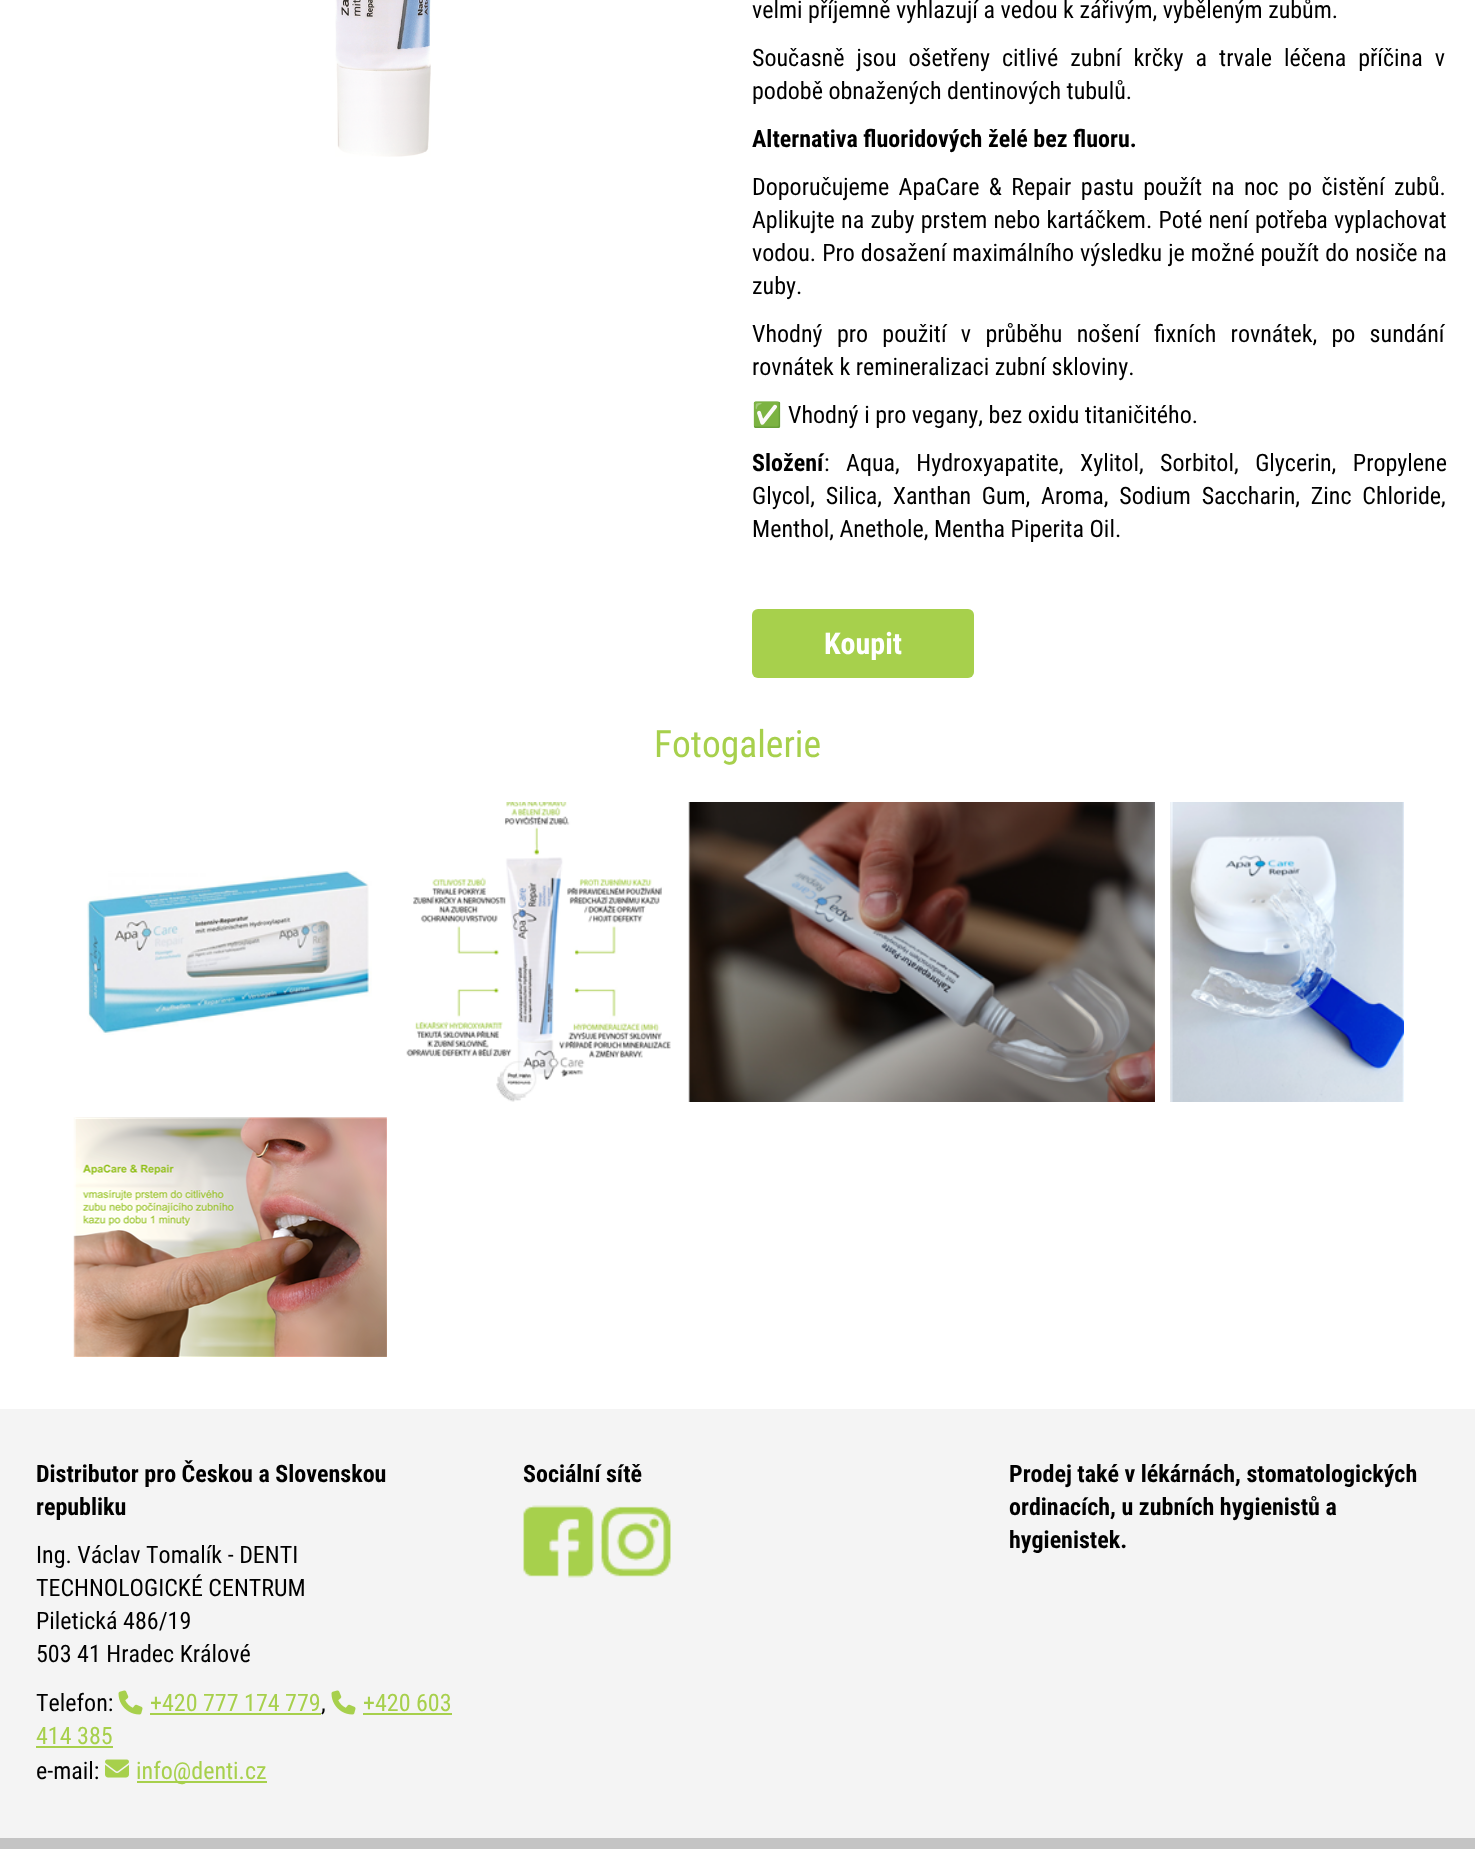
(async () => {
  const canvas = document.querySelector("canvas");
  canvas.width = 1475;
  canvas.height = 1849;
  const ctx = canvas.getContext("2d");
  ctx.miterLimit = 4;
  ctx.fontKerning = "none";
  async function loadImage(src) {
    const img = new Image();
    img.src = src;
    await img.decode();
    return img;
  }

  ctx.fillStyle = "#ffffff";
  ctx.fillRect(0, 0, 1475, 1849);
  ctx.drawImage(await loadImage("img/1.png"), 335, 0, 96, 157);
  ctx.fillStyle = "#a7d04c";
  ctx.beginPath();
  ctx.roundRect(752, 609, 222, 69, 6);
  ctx.fill();
  ctx.drawImage(await loadImage("img/2.png"), 87, 871, 285, 164);
  ctx.drawImage(await loadImage("img/3.png"), 406, 802, 265, 300);
  ctx.drawImage(await loadImage("img/4.png"), 688, 802, 467, 300);
  ctx.drawImage(await loadImage("img/5.png"), 1170, 802, 234, 300);
  ctx.drawImage(await loadImage("img/6.png"), 73, 1117, 314, 240);
  ctx.fillStyle = "#f4f4f4";
  ctx.fillRect(0, 1409, 1475, 429);
  ctx.drawImage(await loadImage("img/7.png"), 331, 1690, 25, 25);
  ctx.fillStyle = "#a7d04c";
  ctx.fillRect(363, 1713, 89, 2);
  ctx.fillRect(36, 1746, 77, 2);
  ctx.drawImage(await loadImage("img/7.png"), 118, 1690, 25, 25);
  ctx.fillRect(150, 1713, 171, 2);
  ctx.drawImage(await loadImage("img/8.png"), 105, 1759, 24, 19);
  ctx.fillRect(137, 1781, 130, 2);
  ctx.drawImage(await loadImage("img/9.png"), 523, 1505, 71, 73);
  ctx.drawImage(await loadImage("img/10.png"), 600, 1506, 71, 71);
  ctx.fillStyle = "#c4c4c4";
  ctx.fillRect(0, 1838, 1475, 11);
  ctx.font = "24px Roboto Condensed";
  ctx.fillStyle = "#000000";
  ctx.fillText("velmi příjemně vyhlazují a vedou k zářivým, vyběleným zubům.", 752, 18);
  ctx.wordSpacing = "6.5px";
  ctx.fillText("Současně jsou ošetřeny citlivé zubní krčky a trvale léčena příčina v", 752, 66);
  ctx.wordSpacing = "0px";
  ctx.fillText("podobě obnažených dentinových tubulů.", 752, 99);
  ctx.font = "bold 24px Roboto Condensed";
  ctx.fillText("Alternativa fluoridových želé bez fluoru.", 752, 147);
  ctx.wordSpacing = "3.9px";
  ctx.font = "24px Roboto Condensed";
  ctx.fillText("Doporučujeme ApaCare & Repair pastu použít na noc po čistění zubů.", 752, 195);
  ctx.wordSpacing = "0.75px";
  ctx.fillText("Aplikujte na zuby prstem nebo kartáčkem. Poté není potřeba vyplachovat", 752, 228);
  ctx.wordSpacing = "0.5px";
  ctx.fillText("vodou. Pro dosažení maximálního výsledku je možné použít do nosiče na", 752, 261);
  ctx.wordSpacing = "0px";
  ctx.fillText("zuby.", 752, 294);
  ctx.wordSpacing = "8.75px";
  ctx.fillText("Vhodný pro použití v průběhu nošení fixních rovnátek, po sundání", 752, 342);
  ctx.wordSpacing = "0px";
  ctx.fillText("rovnátek k remineralizaci zubní skloviny.", 752, 375);
  ctx.font = "bold 24px Noto Color Emoji";
  ctx.fillText("✅", 752, 423);
  ctx.font = "24px Roboto Condensed";
  ctx.fillText("Vhodný i pro vegany, bez oxidu titaničitého.", 788, 423);
  ctx.font = "bold 24px Roboto Condensed";
  ctx.fillText("Složení", 752, 471);
  ctx.wordSpacing = "11px";
  ctx.font = "24px Roboto Condensed";
  ctx.fillText(": Aqua, Hydroxyapatite, Xylitol, Sorbitol, Glycerin, Propylene", 824, 471);
  ctx.wordSpacing = "5.25px";
  ctx.fillText("Glycol, Silica, Xanthan Gum, Aroma, Sodium Saccharin, Zinc Chloride,", 752, 504);
  ctx.wordSpacing = "0px";
  ctx.fillText("Menthol, Anethole, Mentha Piperita Oil.", 752, 537);
  ctx.font = "bold 30px Roboto Condensed";
  ctx.fillStyle = "#ffffff";
  ctx.fillText("Koupit", 824, 654);
  ctx.font = "37.5px Roboto Condensed";
  ctx.fillStyle = "#a7d04c";
  ctx.fillText("Fotogalerie", 654, 757);
  ctx.font = "bold 24px Roboto Condensed";
  ctx.fillStyle = "#000000";
  ctx.fillText("Distributor pro Českou a Slovenskou", 36, 1482);
  ctx.fillText("republiku", 36, 1515);
  ctx.font = "24px Roboto Condensed";
  for (const [text, x, y] of [
    ["Ing. Václav Tomalík - DENTI", 36, 1563],
    ["TECHNOLOGICKÉ CENTRUM", 36, 1596],
    ["Piletická 486/19", 36, 1629],
    ["503 41 Hradec Králové", 36, 1662],
    ["Telefon:", 36, 1711],
  ]) {
    ctx.fillText(text, x, y);
  }
  ctx.fillStyle = "#a7d04c";
  for (const [text, x, y] of [
    ["+420 603", 363, 1711],
    ["414 385", 36, 1744],
    ["+420 777 174 779", 150, 1711],
  ]) {
    ctx.fillText(text, x, y);
  }
  ctx.fillStyle = "#000000";
  ctx.fillText(",", 321, 1711);
  ctx.fillText("e-mail:", 36, 1779);
  ctx.fillStyle = "#a7d04c";
  ctx.fillText("info@denti.cz", 136, 1779);
  ctx.font = "bold 24px Roboto Condensed";
  ctx.fillStyle = "#000000";
  for (const [text, x, y] of [
    ["Sociální sítě", 523, 1482],
    ["Prodej také v lékárnách, stomatologických", 1009, 1482],
    ["ordinacích, u zubních hygienistů a", 1009, 1515],
    ["hygienistek.", 1009, 1548],
  ]) {
    ctx.fillText(text, x, y);
  }
})();
